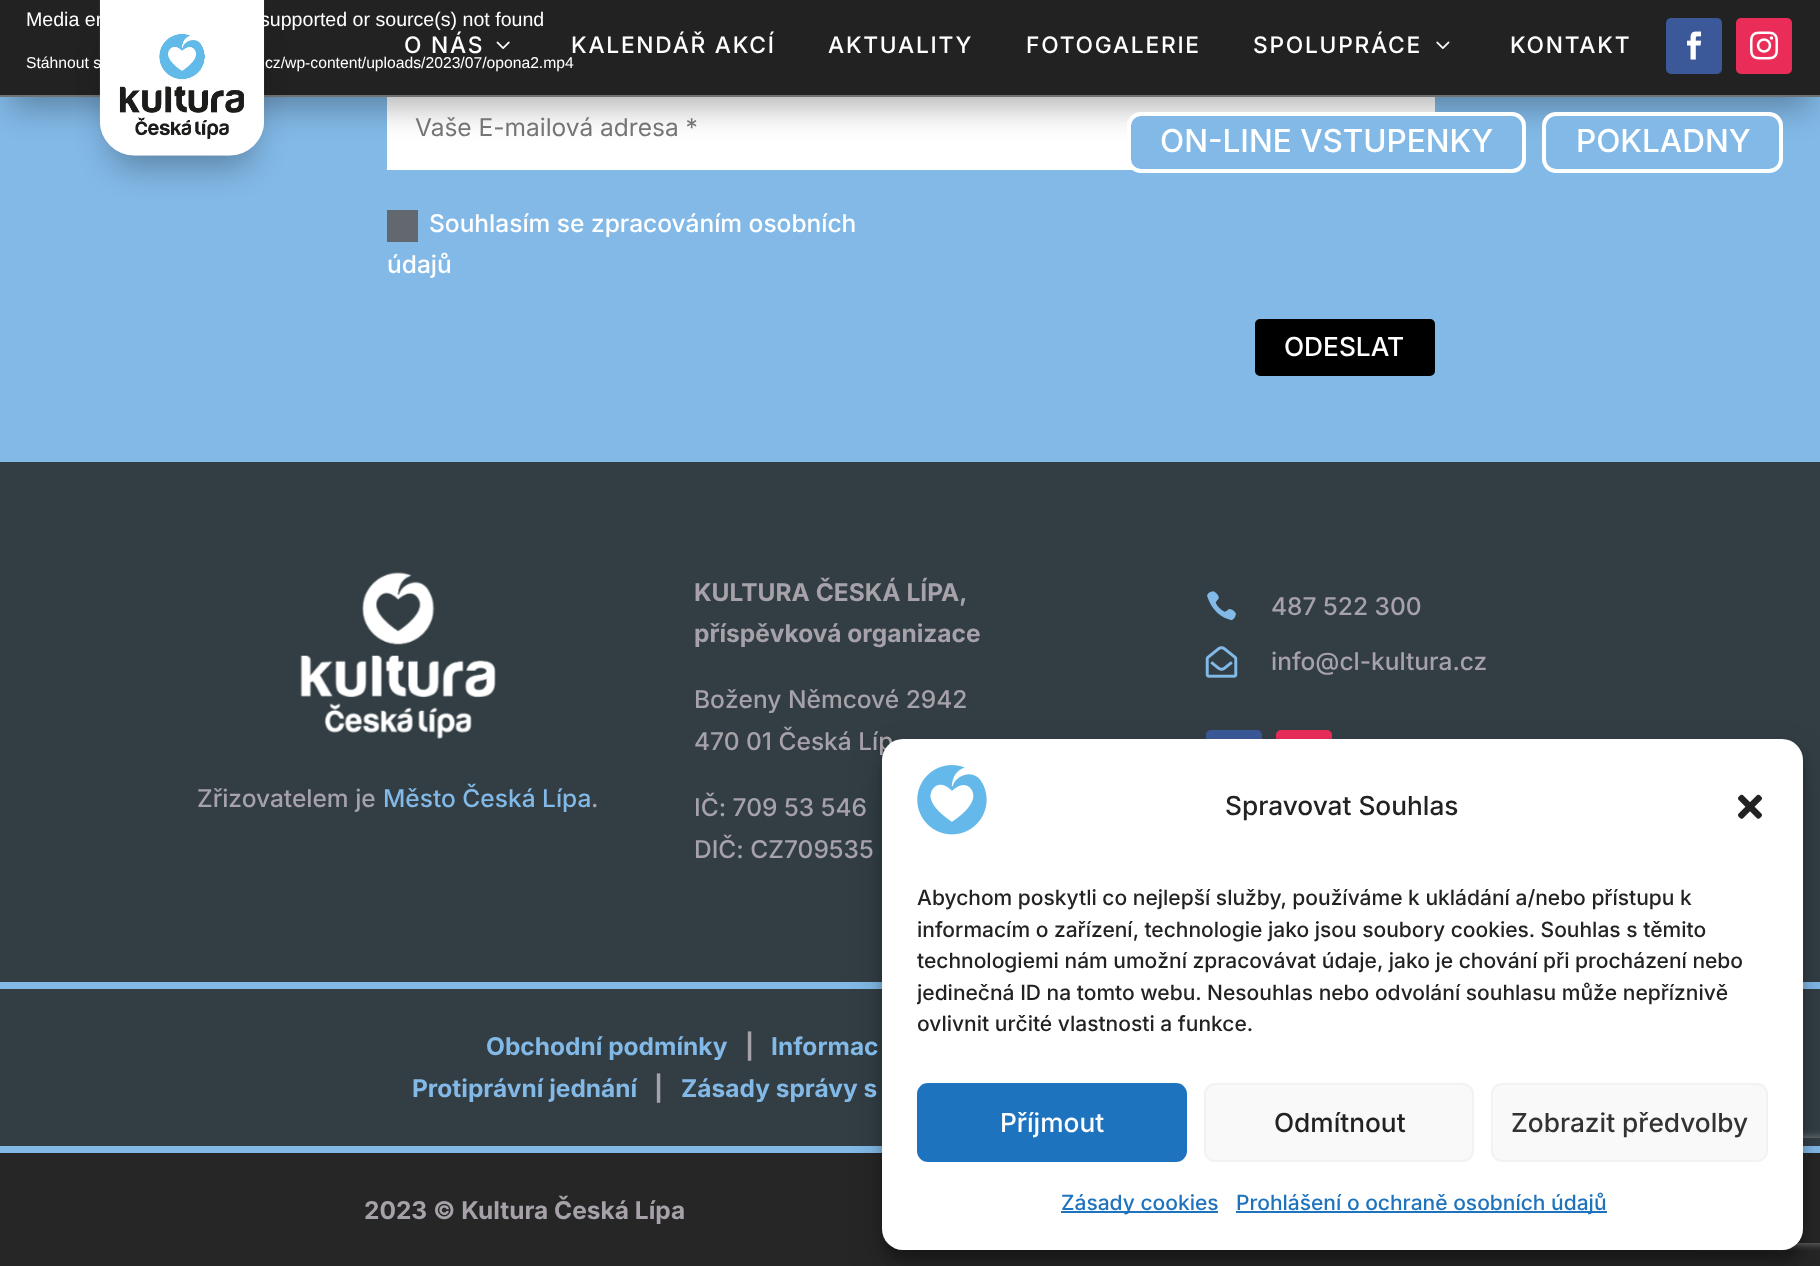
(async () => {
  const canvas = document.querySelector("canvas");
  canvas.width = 1820;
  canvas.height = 1266;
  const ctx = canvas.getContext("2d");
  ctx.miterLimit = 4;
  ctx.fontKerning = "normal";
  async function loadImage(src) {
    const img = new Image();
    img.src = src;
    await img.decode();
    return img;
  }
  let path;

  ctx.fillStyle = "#82b9e7";
  ctx.fillRect(0, 0, 1820, 1266);
  ctx.fillStyle = "#ffffff";
  ctx.fillRect(387, 97, 1048, 73);
  ctx.fillStyle = "rgba(0, 0, 0, 0.3)";
  ctx.filter = "blur(16px)";
  ctx.beginPath();
  ctx.rect(11, 32, 1799, 75);
  ctx.fill();
  ctx.filter = "none";
  ctx.fillStyle = "#707173";
  ctx.fillRect(0, 95, 1820, 2);
  ctx.fillStyle = "#222222";
  ctx.fillRect(0, 0, 1820, 95);
  ctx.fillStyle = "rgba(0, 0, 0, 0.3)";
  ctx.filter = "blur(16px)";
  ctx.beginPath();
  ctx.roundRect(110, 32, 144, 134, 25);
  ctx.fill();
  ctx.filter = "none";
  ctx.fillStyle = "#3b5998";
  ctx.beginPath();
  ctx.roundRect(1666, 18, 56, 56, 5);
  ctx.fill();
  ctx.drawImage(await loadImage("img/2.png"), 1687, 31, 15, 29);
  ctx.fillStyle = "#ea2c59";
  ctx.beginPath();
  ctx.roundRect(1736, 18, 56, 56, 5);
  ctx.fill();
  ctx.drawImage(await loadImage("img/3.png"), 1750, 31, 28, 29);
  ctx.drawImage(await loadImage("img/4.png"), 496, 41, 14, 8);
  ctx.drawImage(await loadImage("img/5.png"), 1436, 41, 14, 8);
  ctx.fillStyle = "#82b9e7";
  ctx.beginPath();
  ctx.roundRect(1129, 114, 395, 57, 12);
  ctx.fill();
  ctx.strokeStyle = "#ffffff";
  ctx.lineWidth = 4;
  ctx.stroke();
  ctx.beginPath();
  ctx.roundRect(1544, 114, 237, 57, 12);
  ctx.fill();
  ctx.stroke();
  ctx.fillStyle = "#63686e";
  ctx.fillRect(387, 210, 31, 32);
  ctx.fillStyle = "#000000";
  ctx.beginPath();
  ctx.roundRect(1257, 321, 176, 53, 3);
  ctx.fill();
  ctx.strokeStyle = "#000000";
  ctx.stroke();
  ctx.fillStyle = "#323e44";
  ctx.fillRect(0, 462, 1820, 520);
  ctx.drawImage(await loadImage("img/6.png"), 1207, 591, 29, 30);
  ctx.drawImage(await loadImage("img/7.png"), 1205, 646, 33, 32);
  ctx.fillStyle = "#3b5998";
  ctx.beginPath();
  ctx.roundRect(1206, 730, 56, 56, 5);
  ctx.fill();
  ctx.fillStyle = "#ea2c59";
  ctx.beginPath();
  ctx.roundRect(1276, 730, 56, 56, 5);
  ctx.fill();
  ctx.drawImage(await loadImage("img/8.png"), 300, 572, 196, 167);
  ctx.fillStyle = "#323e44";
  ctx.fillRect(0, 989, 1820, 157);
  ctx.fillStyle = "#262626";
  ctx.fillRect(0, 1153, 1820, 113);
  ctx.fillStyle = "rgba(0, 0, 0, 0.23)";
  ctx.filter = "blur(5px)";
  ctx.beginPath();
  ctx.roundRect(882, 749, 921, 511, 21);
  ctx.fill();
  ctx.filter = "none";
  ctx.fillStyle = "rgba(0, 0, 0, 0.19)";
  ctx.filter = "blur(17.5px)";
  ctx.beginPath();
  ctx.roundRect(882, 756, 921, 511, 21);
  ctx.fill();
  ctx.filter = "none";
  ctx.save();
  path = new Path2D("M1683 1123H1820V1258H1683ZM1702 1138H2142C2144 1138 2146 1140 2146 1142V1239C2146 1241 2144 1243 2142 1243H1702C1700 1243 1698 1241 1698 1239V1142C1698 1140 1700 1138 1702 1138Z");
  ctx.clip(path, "evenodd");
  ctx.fillStyle = "#808080";
  ctx.filter = "blur(4.5px)";
  ctx.beginPath();
  ctx.roundRect(1698, 1138, 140, 105, 4);
  ctx.fill();
  ctx.filter = "none";
  ctx.restore();
  ctx.font = "19.6px Liberation Sans";
  ctx.fillStyle = "#ffffff";
  ctx.fillText("Media er", 26, 26);
  ctx.fillText("supported or source(s) not found", 260, 26);
  ctx.font = "15.7px Liberation Sans";
  ctx.fillText("Stáhnout s", 26, 68);
  ctx.fillText("cz/wp-content/uploads/2023/07/opona2.mp4", 265, 68);
  ctx.drawImage(await loadImage("img/1.png"), 99, 0, 166, 156);
  ctx.letterSpacing = "1.75px";
  ctx.font = "500 22.75px Inter";
  for (const [text, x, y] of [
    ["O NÁS", 404, 53],
    ["KALENDÁŘ AKCÍ", 571, 53],
    ["AKTUALITY", 828, 53],
    ["FOTOGALERIE", 1026, 53],
    ["SPOLUPRÁCE", 1253, 53],
    ["KONTAKT", 1510, 53],
  ]) {
    ctx.fillText(text, x, y);
  }
  ctx.letterSpacing = "0px";
  ctx.font = "500 31.5px Inter";
  ctx.fillText("ON-LINE VSTUPENKY", 1160, 152);
  ctx.fillText("POKLADNY", 1576, 152);
  ctx.font = "24.5px Inter";
  ctx.fillStyle = "#757575";
  ctx.fillText("Vaše E-mailová adresa *", 415, 136);
  ctx.font = "500 24.5px Inter";
  ctx.fillStyle = "#ffffff";
  ctx.fillText("Souhlasím se zpracováním osobních", 429, 232);
  ctx.fillText("údajů", 387, 273);
  ctx.font = "500 26.25px Inter";
  ctx.fillText("ODESLAT", 1284, 356);
  ctx.font = "bold 24.5px Inter";
  ctx.fillStyle = "#a7a2a9";
  ctx.fillText("KULTURA ČESKÁ LÍPA,", 694, 601);
  ctx.fillText("příspěvková organizace", 694, 642);
  ctx.font = "500 24.5px Inter";
  for (const [text, x, y] of [
    ["Boženy Němcové 2942", 694, 708],
    ["470 01 Česká Líp", 694, 750],
    ["IČ: 709 53 546", 694, 816],
    ["DIČ: CZ709535", 694, 858],
    ["487 522 300", 1271, 615],
    ["info@cl-kultura.cz", 1271, 670],
    ["Zřizovatelem je", 197, 807],
  ]) {
    ctx.fillText(text, x, y);
  }
  ctx.fillStyle = "#82b9e7";
  ctx.fillText("Město Česká Lípa", 383, 807);
  ctx.fillStyle = "#a7a2a9";
  ctx.fillText(".", 591, 807);
  ctx.font = "bold 24.5px Inter";
  ctx.fillStyle = "#82b9e7";
  ctx.fillText("Obchodní podmínky", 486, 1055);
  ctx.fillStyle = "#a7a2a9";
  ctx.fillText("|", 745, 1055);
  ctx.fillStyle = "#82b9e7";
  ctx.fillText("Informac", 771, 1055);
  ctx.fillText("Protiprávní jednání", 412, 1097);
  ctx.fillStyle = "#a7a2a9";
  ctx.fillText("|", 654, 1097);
  ctx.fillStyle = "#82b9e7";
  ctx.fillText("Zásady správy s", 681, 1097);
  ctx.fillStyle = "#a7a2a9";
  ctx.fillText("2023 © Kultura Česká Lípa", 364, 1219);
  ctx.fillStyle = "#ffffff";
  ctx.beginPath();
  ctx.roundRect(882, 739, 921, 511, 21);
  ctx.fill();
  ctx.drawImage(await loadImage("img/9.png"), 917, 765, 70, 70);
  ctx.font = "500 26.25px Inter";
  ctx.fillStyle = "#222222";
  ctx.fillText("Spravovat Souhlas", 1225, 815);
  ctx.drawImage(await loadImage("img/10.png"), 1738, 794, 24, 25);
  ctx.font = "500 21px Inter";
  for (const [text, x, y] of [
    ["Abychom poskytli co nejlepší služby, používáme k ukládání a/nebo přístupu k", 917, 905],
    ["informacím o zařízení, technologie jako jsou soubory cookies. Souhlas s těmito", 917, 937],
    ["technologiemi nám umožní zpracovávat údaje, jako je chování při procházení nebo", 917, 968],
  ]) {
    ctx.fillText(text, x, y);
  }
  ctx.save();
  ctx.beginPath();
  ctx.rect(917, 882, 851, 166);
  ctx.clip();
  ctx.fillText("jedinečná ID na tomto webu. Nesouhlas nebo odvolání souhlasu může nepříznivě", 917, 1000);
  ctx.restore();
  ctx.fillText("ovlivnit určité vlastnosti a funkce.", 917, 1031);
  ctx.fillStyle = "#1e73be";
  ctx.beginPath();
  ctx.roundRect(918, 1084, 268, 77, 10);
  ctx.fill();
  ctx.strokeStyle = "#1e73be";
  ctx.lineWidth = 2;
  ctx.stroke();
  ctx.font = "500 26.25px Inter";
  ctx.fillStyle = "#ffffff";
  ctx.fillText("Příjmout", 1000, 1132);
  ctx.fillStyle = "#f9f9f9";
  ctx.beginPath();
  ctx.roundRect(1205, 1084, 268, 77, 10);
  ctx.fill();
  ctx.strokeStyle = "#f2f2f2";
  ctx.stroke();
  ctx.fillStyle = "#222222";
  ctx.fillText("Odmítnout", 1274, 1132);
  ctx.fillStyle = "#f9f9f9";
  ctx.beginPath();
  ctx.roundRect(1492, 1084, 275, 77, 10);
  ctx.fill();
  ctx.stroke();
  ctx.fillStyle = "#333333";
  ctx.fillText("Zobrazit předvolby", 1511, 1132);
  ctx.fillStyle = "#1e73be";
  ctx.fillRect(1061, 1211, 157, 2);
  ctx.font = "500 21px Inter";
  ctx.fillText("Zásady cookies", 1061, 1210);
  ctx.fillRect(1236, 1211, 371, 2);
  ctx.fillText("Prohlášení o ochraně osobních údajů", 1236, 1210);
})();
